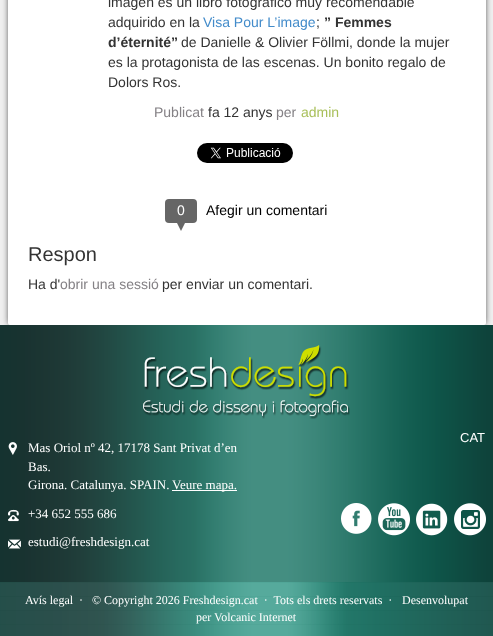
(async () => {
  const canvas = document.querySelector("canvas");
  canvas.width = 493;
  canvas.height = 636;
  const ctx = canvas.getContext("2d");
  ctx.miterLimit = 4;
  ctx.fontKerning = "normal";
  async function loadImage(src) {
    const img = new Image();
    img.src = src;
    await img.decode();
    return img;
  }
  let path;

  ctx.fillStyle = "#efefef";
  ctx.fillRect(0, 0, 493, 636);
  ctx.fillStyle = "#333333";
  ctx.filter = "blur(3px)";
  ctx.beginPath();
  ctx.roundRect(9, -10, 476, 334, 1);
  ctx.fill();
  ctx.filter = "none";
  ctx.fillStyle = "#ffffff";
  ctx.beginPath();
  ctx.roundRect(8, -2, 478, 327, 2);
  ctx.fill();
  ctx.drawImage(await loadImage("img/1.png"), 197, 143, 96, 20);
  ctx.fillStyle = "#666666";
  ctx.beginPath();
  ctx.roundRect(165, 199, 32, 24, 4);
  ctx.fill();
  path = new Path2D("M176 221H186L181 231Z");
  ctx.fill(path);
  ctx.drawImage(await loadImage("img/2.png"), 0, 325, 493, 257);
  ctx.drawImage(await loadImage("img/3.png"), 143, 345, 207, 74);
  ctx.drawImage(await loadImage("img/4.png"), 341, 503, 31, 31);
  ctx.drawImage(await loadImage("img/5.png"), 378, 503, 32, 33);
  ctx.drawImage(await loadImage("img/6.png"), 416, 503, 32, 33);
  ctx.drawImage(await loadImage("img/7.png"), 454, 503, 32, 33);
  ctx.drawImage(await loadImage("img/8.png"), 8, 442, 9, 13);
  ctx.fillStyle = "#ffffff";
  ctx.fillRect(172, 490, 65, 1);
  ctx.drawImage(await loadImage("img/9.png"), 8, 509, 11, 13);
  ctx.drawImage(await loadImage("img/10.png"), 8, 539, 13, 10);
  ctx.drawImage(await loadImage("img/11.png"), 0, 582, 493, 54);
  ctx.font = "14px Liberation Sans";
  ctx.fillStyle = "#333333";
  ctx.fillText("imagen es un libro fotográfico muy recomendable", 108, 7);
  ctx.fillText("adquirido en la", 108, 27);
  ctx.fillStyle = "#428bca";
  ctx.fillText("Visa Pour L’image", 203, 27);
  ctx.fillStyle = "#333333";
  ctx.fillText(";", 316, 27);
  ctx.font = "bold 14px Liberation Sans";
  ctx.fillText("” Femmes", 324, 27);
  ctx.fillText("d’éternité”", 108, 47);
  ctx.font = "14px Liberation Sans";
  for (const [text, x, y] of [
    ["de Danielle & Olivier Föllmi, donde la mujer", 181, 47],
    ["es la protagonista de las escenas. Un bonito regalo de", 108, 67],
    ["Dolors Ros.", 108, 87],
  ]) {
    ctx.fillText(text, x, y);
  }
  ctx.fillStyle = "#848185";
  ctx.fillText("Publicat", 154, 117);
  ctx.fillStyle = "#333333";
  ctx.fillText("fa 12 anys", 208, 117);
  ctx.fillStyle = "#848185";
  ctx.fillText("per", 276, 117);
  ctx.fillStyle = "#a8bf59";
  ctx.fillText("admin", 301, 117);
  ctx.fillStyle = "#ffffff";
  ctx.fillText("0", 177, 215);
  ctx.fillStyle = "#000000";
  ctx.fillText("Afegir un comentari", 206, 215);
  ctx.font = "20px Liberation Sans";
  ctx.fillStyle = "#333333";
  ctx.fillText("Respon", 28, 261);
  ctx.font = "14px Liberation Sans";
  ctx.fillText("Ha d'", 28, 289);
  ctx.fillStyle = "#848185";
  ctx.fillText("obrir una sessió", 60, 289);
  ctx.fillStyle = "#333333";
  ctx.fillText("per enviar un comentari.", 162, 289);
  ctx.font = "13px Liberation Sans";
  ctx.fillStyle = "#ffffff";
  ctx.fillText("CAT", 460, 442);
  ctx.font = "13px Liberation Serif";
  for (const [text, x, y] of [
    ["Mas Oriol nº 42, 17178 Sant Privat d’en", 28, 452],
    ["Bas.", 28, 471],
    ["Girona. Catalunya. SPAIN.", 28, 489],
    ["Veure mapa.", 172, 489],
    ["+34 652 555 686", 28, 518],
    ["estudi@freshdesign.cat", 28, 546],
  ]) {
    ctx.fillText(text, x, y);
  }
  ctx.font = "12px Liberation Serif";
  for (const [text, x, y] of [
    ["Avís legal", 25, 604],
    ["·", 79, 604],
    ["© Copyright 2026 Freshdesign.cat  ·  Tots els drets reservats  ·", 92, 604],
    ["Desenvolupat", 402, 604],
    ["per Volcanic Internet", 196, 621],
  ]) {
    ctx.fillText(text, x, y);
  }
})();
